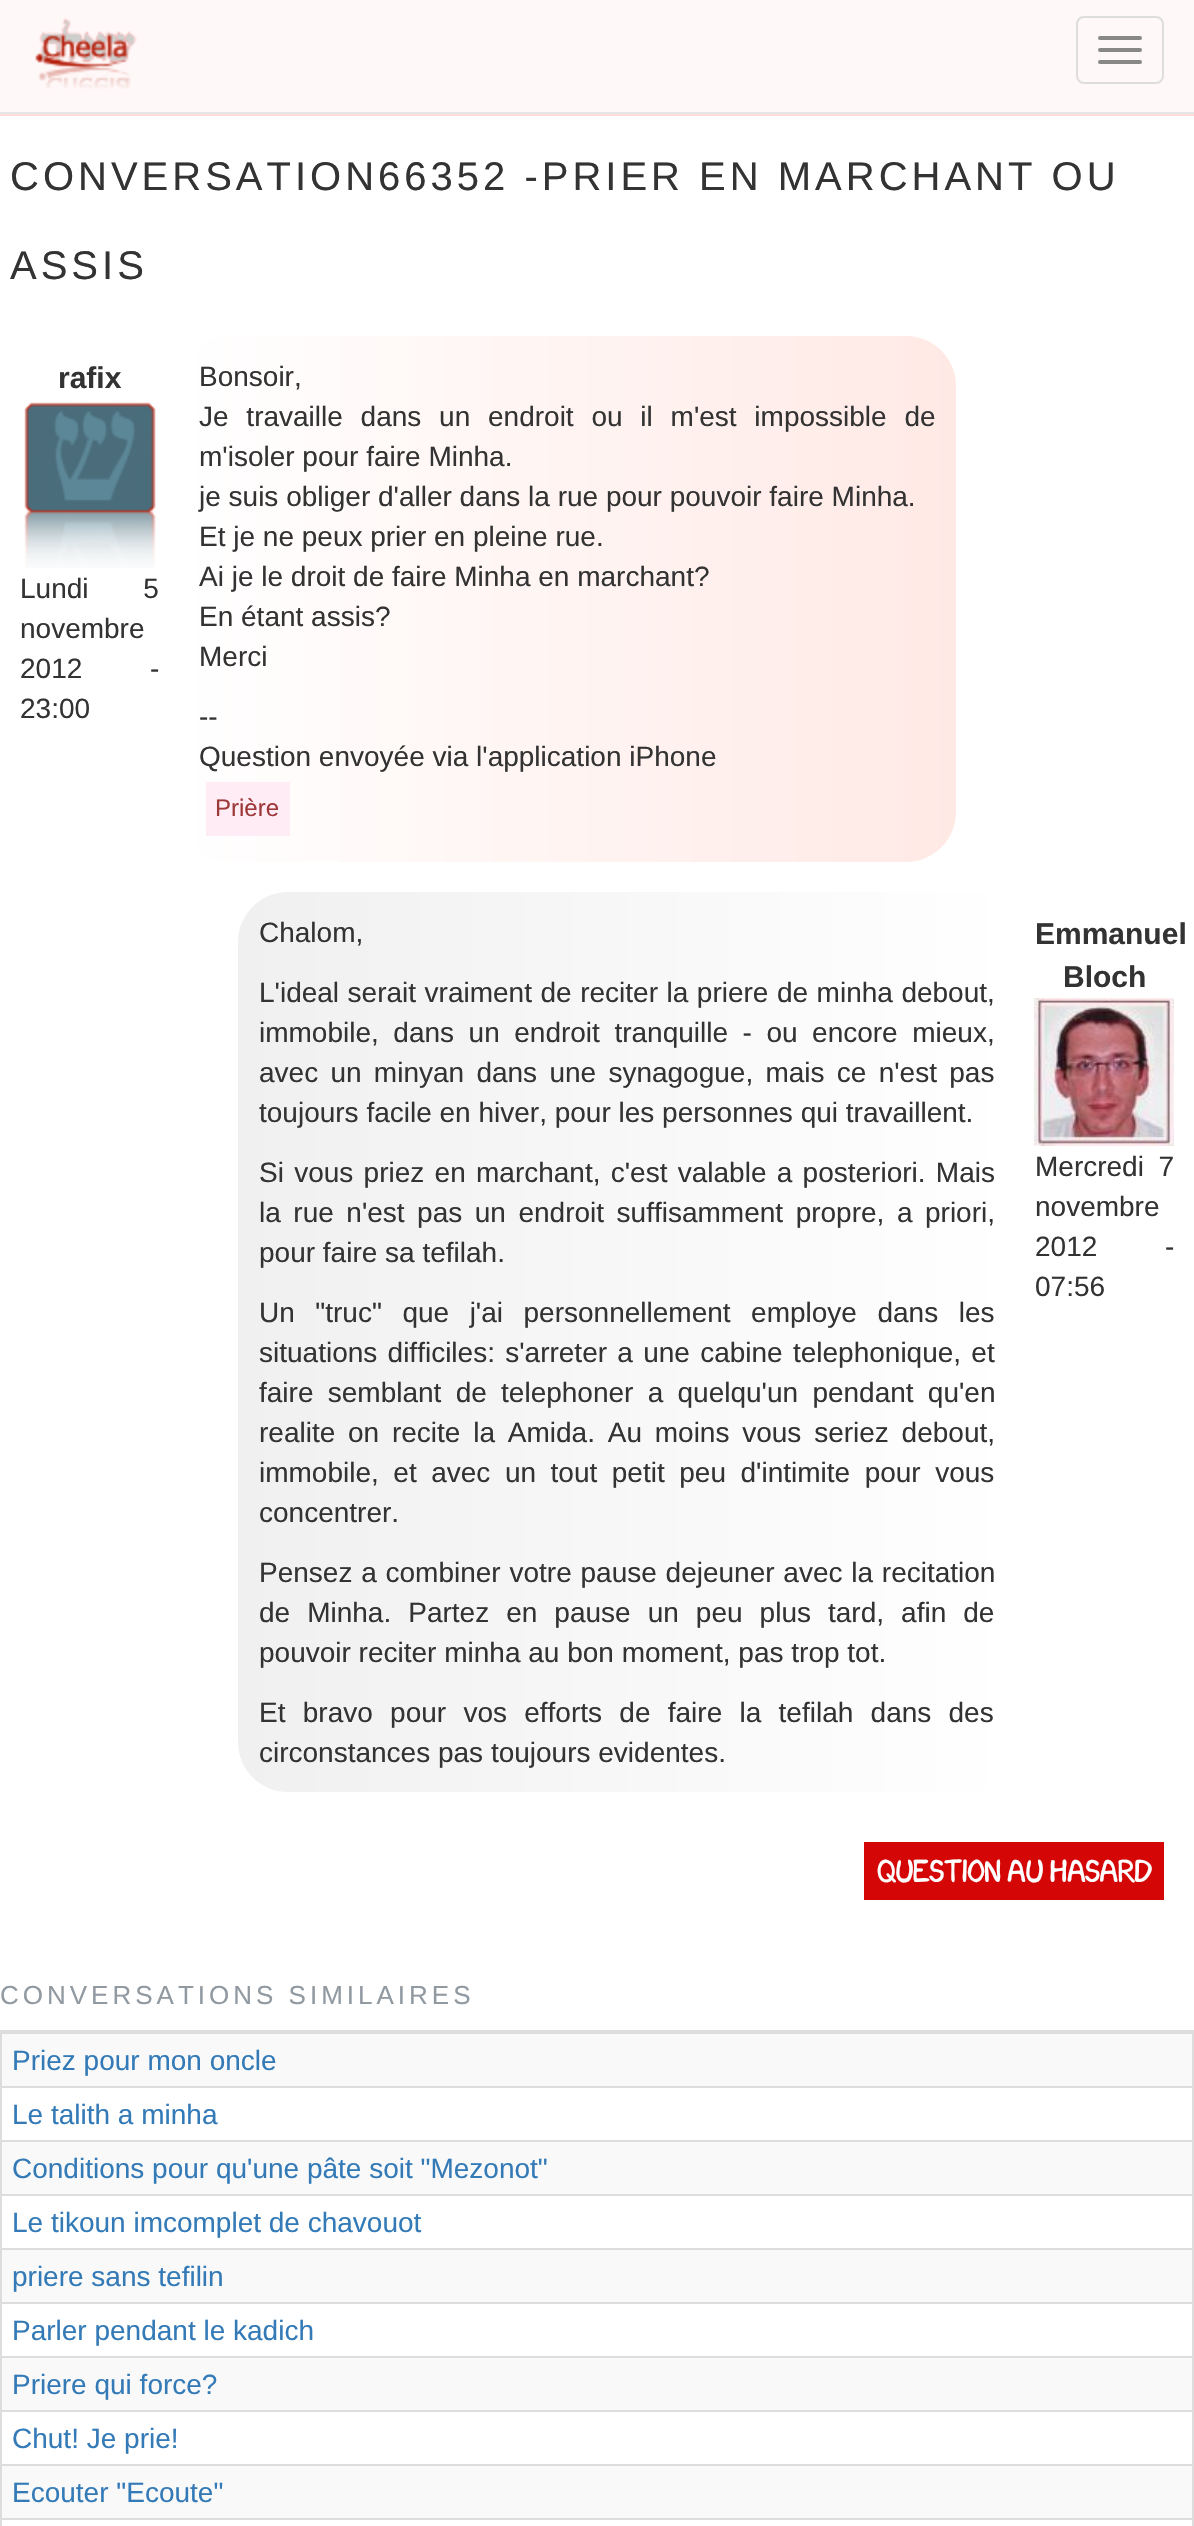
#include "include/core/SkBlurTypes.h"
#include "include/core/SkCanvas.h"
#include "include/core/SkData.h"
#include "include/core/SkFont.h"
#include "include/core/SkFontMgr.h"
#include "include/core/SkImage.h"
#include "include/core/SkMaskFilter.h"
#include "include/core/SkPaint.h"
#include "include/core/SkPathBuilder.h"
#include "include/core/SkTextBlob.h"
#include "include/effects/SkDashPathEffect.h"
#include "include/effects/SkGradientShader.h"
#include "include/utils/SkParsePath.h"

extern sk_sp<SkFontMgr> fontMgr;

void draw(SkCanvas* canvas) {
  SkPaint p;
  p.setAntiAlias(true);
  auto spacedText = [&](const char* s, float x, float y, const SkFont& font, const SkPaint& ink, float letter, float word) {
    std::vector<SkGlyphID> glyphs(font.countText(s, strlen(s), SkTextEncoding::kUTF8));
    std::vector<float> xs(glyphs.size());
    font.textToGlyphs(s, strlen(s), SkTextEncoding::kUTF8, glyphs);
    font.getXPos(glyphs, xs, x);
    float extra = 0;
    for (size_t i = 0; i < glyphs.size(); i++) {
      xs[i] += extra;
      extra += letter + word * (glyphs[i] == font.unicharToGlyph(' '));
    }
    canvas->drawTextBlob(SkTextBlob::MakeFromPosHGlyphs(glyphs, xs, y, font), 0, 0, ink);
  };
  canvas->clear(SK_ColorWHITE);
  p.setColor(SkColorSetRGB(255, 219, 219));
  canvas->drawRect(SkRect::MakeLTRB(0, 114, 1194, 116), p);
  p.setColor(SkColorSetRGB(255, 248, 248));
  canvas->drawRect(SkRect::MakeLTRB(0, 0, 1194, 112), p);
  p.setColor(SkColorSetRGB(231, 231, 231));
  canvas->drawRect(SkRect::MakeLTRB(0, 112, 1194, 114), p);
  canvas->drawImageRect(SkImages::DeferredFromEncodedData(SkData::MakeFromFileName("images/1.png")), SkRect::MakeLTRB(35, 17, 137, 89), SkSamplingOptions());
  p.setStyle(SkPaint::kStroke_Style);
  p.setStrokeWidth(2);
  p.setColor(SkColorSetRGB(221, 221, 221));
  canvas->drawRoundRect(SkRect::MakeLTRB(1077, 17, 1163, 83), 7, 7, p);
  p.setStyle(SkPaint::kFill_Style);
  p.setColor(SkColorSetRGB(136, 136, 136));
  canvas->drawRoundRect(SkRect::MakeLTRB(1098, 36, 1142, 40), 2, 2, p);
  canvas->drawRoundRect(SkRect::MakeLTRB(1098, 48, 1142, 52), 2, 2, p);
  canvas->drawRoundRect(SkRect::MakeLTRB(1098, 60, 1142, 64), 2, 2, p);
  canvas->drawImageRect(SkImages::DeferredFromEncodedData(SkData::MakeFromFileName("images/2.png")), SkRect::MakeLTRB(24, 402, 156, 568), SkSamplingOptions());
  {
    const SkColor colors[] = {SK_ColorWHITE, SkColorSetRGB(255, 233, 229)};
    const float stops[] = {0, 1};
    const SkPoint ends[] = {{180, 599}, {956, 599}};
    p.setShader(SkGradientShader::MakeLinear(ends, colors, stops, 2, SkTileMode::kClamp));
    p.setAlpha(255);
  }
  canvas->drawRoundRect(SkRect::MakeLTRB(180, 336, 956, 862), 50, 50, p);
  p.setShader(nullptr);
  p.setColor(SkColorSetRGB(255, 236, 244));
  canvas->drawRect(SkRect::MakeLTRB(206, 782, 290, 836), p);
  {
    const SkColor colors[] = {SK_ColorWHITE, SkColorSetRGB(240, 240, 240)};
    const float stops[] = {0, 1};
    const SkPoint ends[] = {{1014, 1342}, {238, 1342}};
    p.setShader(SkGradientShader::MakeLinear(ends, colors, stops, 2, SkTileMode::kClamp));
    p.setAlpha(255);
  }
  canvas->drawRoundRect(SkRect::MakeLTRB(238, 892, 1014, 1792), 50, 50, p);
  canvas->drawImageRect(SkImages::DeferredFromEncodedData(SkData::MakeFromFileName("images/3.png")), SkRect::MakeLTRB(1034, 998, 1174, 1146), SkSamplingOptions());
  p.setShader(nullptr);
  p.setColor(SkColorSetRGB(212, 6, 6));
  canvas->drawRect(SkRect::MakeLTRB(864, 1842, 1164, 1900), p);
  p.setStyle(SkPaint::kStroke_Style);
  p.setColor(SkColorSetRGB(221, 221, 221));
  canvas->drawRect(SkRect::MakeLTRB(1, 2031, 1193, 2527), p);
  p.setStyle(SkPaint::kFill_Style);
  p.setColor(SkColorSetRGB(249, 249, 249));
  canvas->drawRect(SkRect::MakeLTRB(2, 2034, 1192, 2086), p);
  p.setColor(SkColorSetRGB(221, 221, 221));
  canvas->drawRect(SkRect::MakeLTRB(2, 2032, 1192, 2034), p);
  canvas->drawRect(SkRect::MakeLTRB(2, 2086, 1192, 2088), p);
  p.setColor(SkColorSetRGB(249, 249, 249));
  canvas->drawRect(SkRect::MakeLTRB(2, 2142, 1192, 2194), p);
  p.setColor(SkColorSetRGB(221, 221, 221));
  canvas->drawRect(SkRect::MakeLTRB(2, 2140, 1192, 2142), p);
  canvas->drawRect(SkRect::MakeLTRB(2, 2194, 1192, 2196), p);
  p.setColor(SkColorSetRGB(249, 249, 249));
  canvas->drawRect(SkRect::MakeLTRB(2, 2250, 1192, 2302), p);
  p.setColor(SkColorSetRGB(221, 221, 221));
  canvas->drawRect(SkRect::MakeLTRB(2, 2248, 1192, 2250), p);
  canvas->drawRect(SkRect::MakeLTRB(2, 2302, 1192, 2304), p);
  p.setColor(SkColorSetRGB(249, 249, 249));
  canvas->drawRect(SkRect::MakeLTRB(2, 2358, 1192, 2410), p);
  p.setColor(SkColorSetRGB(221, 221, 221));
  canvas->drawRect(SkRect::MakeLTRB(2, 2356, 1192, 2358), p);
  canvas->drawRect(SkRect::MakeLTRB(2, 2410, 1192, 2412), p);
  p.setColor(SkColorSetRGB(249, 249, 249));
  canvas->drawRect(SkRect::MakeLTRB(2, 2466, 1192, 2518), p);
  p.setColor(SkColorSetRGB(221, 221, 221));
  canvas->drawRect(SkRect::MakeLTRB(2, 2464, 1192, 2466), p);
  canvas->drawRect(SkRect::MakeLTRB(2, 2518, 1192, 2520), p);
  SkFont font1(fontMgr->matchFamilyStyle("Liberation Sans", SkFontStyle::Normal()), 40);
  font1.setSubpixel(true);
  p.setColor(SkColorSetRGB(51, 51, 51));
  spacedText("CONVERSATION66352 -PRIER EN MARCHANT OU", 10, 190, font1, p, 4, 0);
  spacedText("ASSIS", 10, 279, font1, p, 4, 0);
  SkFont font2(fontMgr->matchFamilyStyle("Liberation Sans", SkFontStyle::Bold()), 30);
  font2.setSubpixel(true);
  canvas->drawString("rafix", 58, 388, font2, p);
  SkFont font3(fontMgr->matchFamilyStyle("Liberation Sans", SkFontStyle::Normal()), 28);
  font3.setSubpixel(true);
  spacedText("Lundi 5", 20, 598, font3, p, 0, 47);
  canvas->drawString("novembre", 20, 638, font3, p);
  spacedText("2012 -", 20, 678, font3, p, 0, 60);
  canvas->drawString("23:00", 20, 718, font3, p);
  canvas->drawString("Bonsoir,", 199, 386, font3, p);
  spacedText("Je travaille dans un endroit ou il m'est impossible de", 199, 426, font3, p, 0, 10);
  canvas->drawString("m'isoler pour faire Minha.", 199, 466, font3, p);
  canvas->drawString("je suis obliger d'aller dans la rue pour pouvoir faire Minha.", 199, 506, font3, p);
  canvas->drawString("Et je ne peux prier en pleine rue.", 199, 546, font3, p);
  canvas->drawString("Ai je le droit de faire Minha en marchant?", 199, 586, font3, p);
  canvas->drawString("En étant assis?", 199, 626, font3, p);
  canvas->drawString("Merci", 199, 666, font3, p);
  canvas->drawString("--", 199, 726, font3, p);
  canvas->drawString("Question envoyée via l'application iPhone", 199, 766, font3, p);
  SkFont font4(fontMgr->matchFamilyStyle("Liberation Sans", SkFontStyle::Normal()), 24);
  font4.setSubpixel(true);
  p.setColor(SkColorSetRGB(157, 57, 57));
  canvas->drawString("Prière", 215, 816, font4, p);
  p.setColor(SkColorSetRGB(51, 51, 51));
  canvas->drawString("Chalom,", 259, 942, font3, p);
  spacedText("L'ideal serait vraiment de reciter la priere de minha debout,", 259, 1002, font3, p, 0, 0.75f);
  spacedText("immobile, dans un endroit tranquille - ou encore mieux,", 259, 1042, font3, p, 0, 6.75f);
  spacedText("avec un minyan dans une synagogue, mais ce n'est pas", 259, 1082, font3, p, 0, 4.5f);
  canvas->drawString("toujours facile en hiver, pour les personnes qui travaillent.", 259, 1122, font3, p);
  spacedText("Si vous priez en marchant, c'est valable a posteriori. Mais", 259, 1182, font3, p, 0, 2.5f);
  spacedText("la rue n'est pas un endroit suffisamment propre, a priori,", 259, 1222, font3, p, 0, 4.75f);
  canvas->drawString("pour faire sa tefilah.", 259, 1262, font3, p);
  spacedText("Un \"truc\" que j'ai personnellement employe dans les", 259, 1322, font3, p, 0, 12.75f);
  spacedText("situations difficiles: s'arreter a une cabine telephonique, et", 259, 1362, font3, p, 0, 2.5f);
  spacedText("faire semblant de telephoner a quelqu'un pendant qu'en", 259, 1402, font3, p, 0, 6.5f);
  spacedText("realite on recite la Amida. Au moins vous seriez debout,", 259, 1442, font3, p, 0, 5);
  spacedText("immobile, et avec un tout petit peu d'intimite pour vous", 259, 1482, font3, p, 0, 6.75f);
  canvas->drawString("concentrer.", 259, 1522, font3, p);
  spacedText("Pensez a combiner votre pause dejeuner avec la recitation", 259, 1582, font3, p, 0, 1);
  spacedText("de Minha. Partez en pause un peu plus tard, afin de", 259, 1622, font3, p, 0, 9.25f);
  canvas->drawString("pouvoir reciter minha au bon moment, pas trop tot.", 259, 1662, font3, p);
  spacedText("Et bravo pour vos efforts de faire la tefilah dans des", 259, 1722, font3, p, 0, 9.5f);
  canvas->drawString("circonstances pas toujours evidentes.", 259, 1762, font3, p);
  canvas->drawString("Emmanuel", 1035, 944, font2, p);
  canvas->drawString("Bloch", 1063, 987, font2, p);
  spacedText("Mercredi 7", 1035, 1176, font3, p, 0, 6.75f);
  canvas->drawString("novembre", 1035, 1216, font3, p);
  spacedText("2012 -", 1035, 1256, font3, p, 0, 60);
  canvas->drawString("07:56", 1035, 1296, font3, p);
  SkFont font5(fontMgr->matchFamilyStyle("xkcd", SkFontStyle::Normal()), 28);
  font5.setSubpixel(true);
  p.setColor(SK_ColorWHITE);
  canvas->drawString("Question au hasard", 877, 1882, font5, p);
  SkFont font6(fontMgr->matchFamilyStyle("Liberation Sans", SkFontStyle::Normal()), 26);
  font6.setSubpixel(true);
  p.setColor(SkColorSetRGB(145, 153, 161));
  spacedText("CONVERSATIONS SIMILAIRES", 0, 2004, font6, p, 4, 0);
  p.setColor(SkColorSetRGB(51, 122, 183));
  canvas->drawString("Priez pour mon oncle", 12, 2070, font3, p);
  canvas->drawString("Le talith a minha", 12, 2124, font3, p);
  canvas->drawString("Conditions pour qu'une pâte soit \"Mezonot\"", 12, 2178, font3, p);
  canvas->drawString("Le tikoun imcomplet de chavouot", 12, 2232, font3, p);
  canvas->drawString("priere sans tefilin", 12, 2286, font3, p);
  canvas->drawString("Parler pendant le kadich", 12, 2340, font3, p);
  canvas->drawString("Priere qui force?", 12, 2394, font3, p);
  canvas->drawString("Chut! Je prie!", 12, 2448, font3, p);
  canvas->drawString("Ecouter \"Ecoute\"", 12, 2502, font3, p);
}
